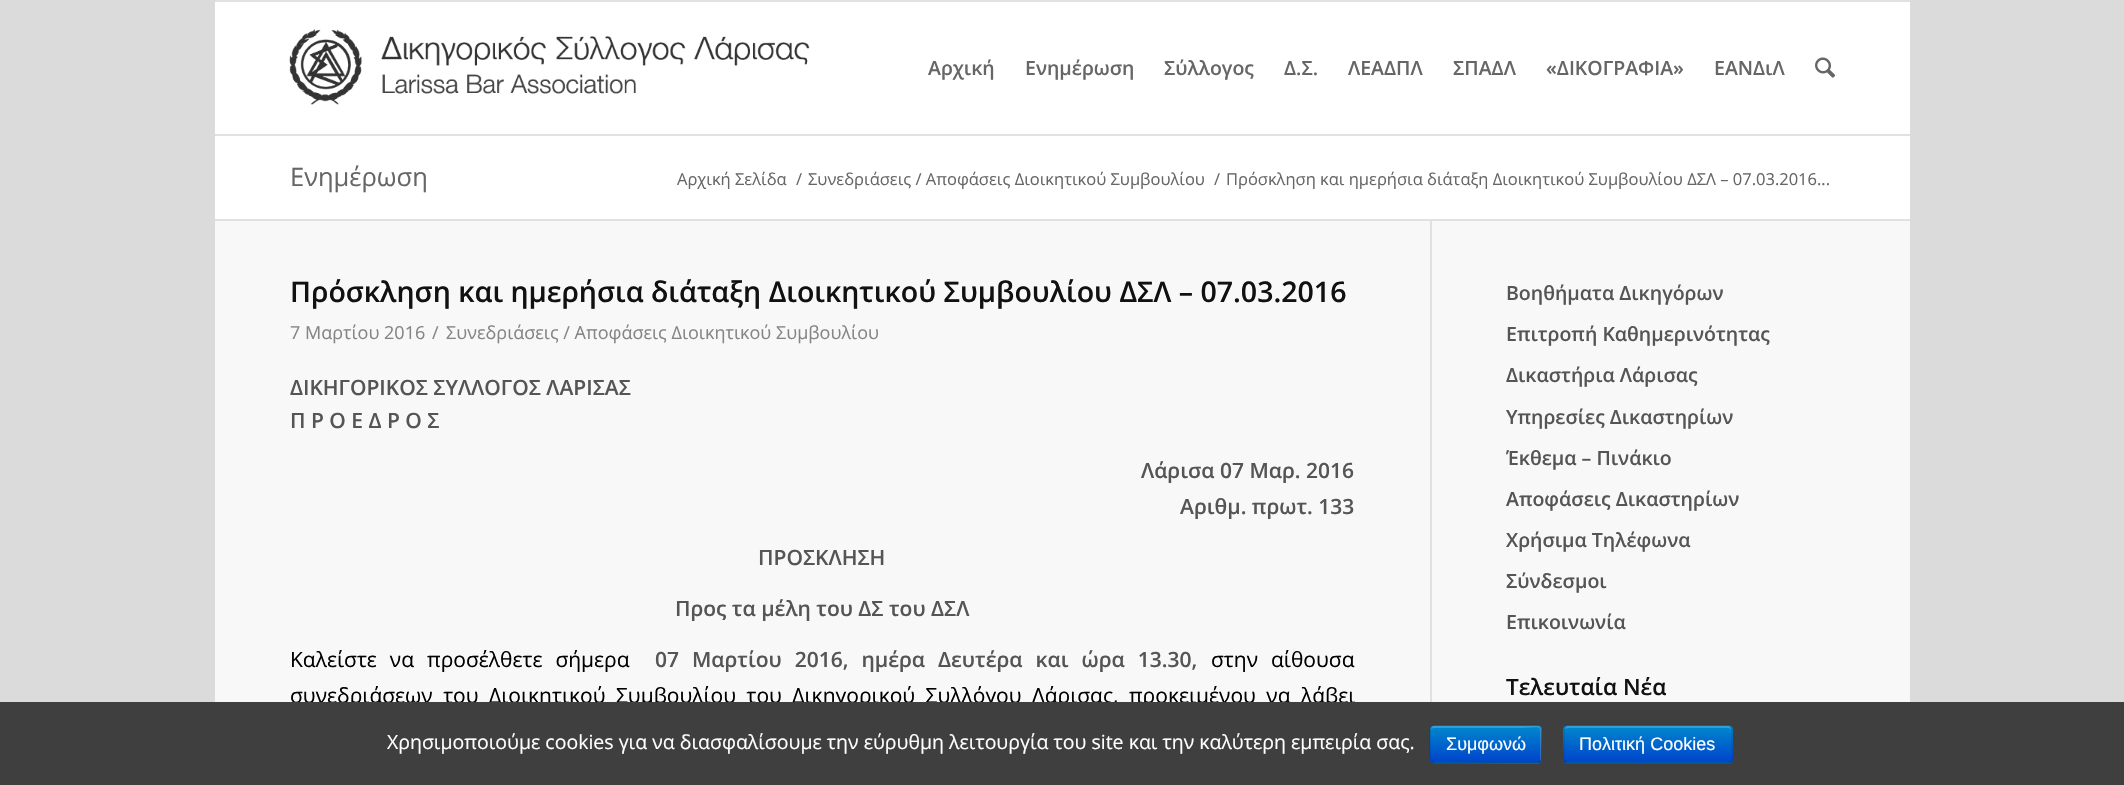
#include "include/core/SkBlurTypes.h"
#include "include/core/SkCanvas.h"
#include "include/core/SkData.h"
#include "include/core/SkFont.h"
#include "include/core/SkFontMgr.h"
#include "include/core/SkImage.h"
#include "include/core/SkMaskFilter.h"
#include "include/core/SkPaint.h"
#include "include/core/SkPathBuilder.h"
#include "include/core/SkTextBlob.h"
#include "include/effects/SkDashPathEffect.h"
#include "include/effects/SkGradientShader.h"
#include "include/utils/SkParsePath.h"

extern sk_sp<SkFontMgr> fontMgr;

void draw(SkCanvas* canvas) {
  SkPaint p;
  p.setAntiAlias(true);
  auto spacedText = [&](const char* s, float x, float y, const SkFont& font, const SkPaint& ink, float letter, float word) {
    std::vector<SkGlyphID> glyphs(font.countText(s, strlen(s), SkTextEncoding::kUTF8));
    std::vector<float> xs(glyphs.size());
    font.textToGlyphs(s, strlen(s), SkTextEncoding::kUTF8, glyphs);
    font.getXPos(glyphs, xs, x);
    float extra = 0;
    for (size_t i = 0; i < glyphs.size(); i++) {
      xs[i] += extra;
      extra += letter + word * (glyphs[i] == font.unicharToGlyph(' '));
    }
    canvas->drawTextBlob(SkTextBlob::MakeFromPosHGlyphs(glyphs, xs, y, font), 0, 0, ink);
  };
  canvas->clear(SkColorSetRGB(219, 219, 219));
  p.setColor(SK_ColorWHITE);
  canvas->drawRect(SkRect::MakeLTRB(215, 2, 1910, 134), p);
  p.setColor(SkColorSetRGB(225, 225, 225));
  canvas->drawRect(SkRect::MakeLTRB(215, 0, 1910, 2), p);
  canvas->drawRect(SkRect::MakeLTRB(215, 134, 1910, 136), p);
  canvas->drawImageRect(SkImages::DeferredFromEncodedData(SkData::MakeFromFileName("images/1.png")), SkRect::MakeLTRB(289, 29, 810, 105), SkSamplingOptions());
  canvas->drawImageRect(SkImages::DeferredFromEncodedData(SkData::MakeFromFileName("images/2.png")), SkRect::MakeLTRB(1815, 57, 1836, 78), SkSamplingOptions());
  p.setColor(SK_ColorWHITE);
  canvas->drawRect(SkRect::MakeLTRB(215, 136, 1910, 219), p);
  p.setColor(SkColorSetRGB(248, 248, 248));
  canvas->drawRect(SkRect::MakeLTRB(215, 221, 1910, 702), p);
  p.setColor(SkColorSetRGB(225, 225, 225));
  canvas->drawRect(SkRect::MakeLTRB(215, 219, 1910, 221), p);
  canvas->drawRect(SkRect::MakeLTRB(1430, 221, 1432, 702), p);
  SkFont font1(fontMgr->matchFamilyStyle("Open Sans", SkFontStyle(600, SkFontStyle::kNormal_Width, SkFontStyle::kUpright_Slant)), 19.5f);
  font1.setSubpixel(true);
  p.setColor(SkColorSetRGB(102, 102, 102));
  canvas->drawString("Αρχική", 928, 75, font1, p);
  canvas->drawString("Ενημέρωση", 1025, 75, font1, p);
  canvas->drawString("Σύλλογος", 1164, 75, font1, p);
  canvas->drawString("Δ.Σ.", 1284, 75, font1, p);
  canvas->drawString("ΛΕΑΔΠΛ", 1348, 75, font1, p);
  canvas->drawString("ΣΠΑΔΛ", 1453, 75, font1, p);
  canvas->drawString("«ΔΙΚΟΓΡΑΦΙΑ»", 1546, 75, font1, p);
  canvas->drawString("ΕΑΝΔιΛ", 1714, 75, font1, p);
  SkFont font2(fontMgr->matchFamilyStyle("Open Sans", SkFontStyle::Normal()), 25.5f);
  font2.setSubpixel(true);
  canvas->drawString("Ενημέρωση", 290, 186, font2, p);
  SkFont font3(fontMgr->matchFamilyStyle("Open Sans", SkFontStyle::Normal()), 16.5f);
  font3.setSubpixel(true);
  canvas->drawString("Αρχική Σελίδα", 677, 185, font3, p);
  canvas->drawString("/", 796, 185, font3, p);
  canvas->drawString("Συνεδριάσεις / Αποφάσεις Διοικητικού Συμβουλίου", 808, 185, font3, p);
  canvas->drawString("/", 1214, 185, font3, p);
  canvas->drawString("Πρόσκληση και ημερήσια διάταξη Διοικητικού Συμβουλίου ΔΣΛ – 07.03.2016...", 1226, 185, font3, p);
  SkFont font4(fontMgr->matchFamilyStyle("Open Sans", SkFontStyle(600, SkFontStyle::kNormal_Width, SkFontStyle::kUpright_Slant)), 28.5f);
  font4.setSubpixel(true);
  p.setColor(SkColorSetRGB(17, 17, 17));
  canvas->drawString("Πρόσκληση και ημερήσια διάταξη Διοικητικού Συμβουλίου ΔΣΛ – 07.03.2016", 290, 302, font4, p);
  SkFont font5(fontMgr->matchFamilyStyle("Open Sans", SkFontStyle::Normal()), 18);
  font5.setSubpixel(true);
  p.setColor(SkColorSetRGB(133, 133, 133));
  canvas->drawString("7 Μαρτίου 2016", 290, 339, font5, p);
  canvas->drawString("/", 432, 339, font5, p);
  canvas->drawString("Συνεδριάσεις / Αποφάσεις Διοικητικού Συμβουλίου", 446, 339, font5, p);
  SkFont font6(fontMgr->matchFamilyStyle("Open Sans", SkFontStyle(600, SkFontStyle::kNormal_Width, SkFontStyle::kUpright_Slant)), 21);
  font6.setSubpixel(true);
  p.setColor(SkColorSetRGB(85, 85, 85));
  canvas->drawString("ΔΙΚΗΓΟΡΙΚΟΣ ΣΥΛΛΟΓΟΣ ΛΑΡΙΣΑΣ", 290, 395, font6, p);
  canvas->drawString("Π Ρ Ο Ε Δ Ρ Ο Σ", 290, 428, font6, p);
  canvas->drawString("Λάρισα 07 Μαρ. 2016", 1141, 478, font6, p);
  canvas->drawString("Αριθμ. πρωτ. 133", 1180, 514, font6, p);
  canvas->drawString("ΠΡΟΣΚΛΗΣΗ", 758, 565, font6, p);
  canvas->drawString("Προς τα μέλη του ΔΣ του ΔΣΛ", 675, 616, font6, p);
  SkFont font7(fontMgr->matchFamilyStyle("Open Sans", SkFontStyle::Normal()), 21);
  font7.setSubpixel(true);
  p.setColor(SK_ColorBLACK);
  spacedText("Καλείστε να προσέλθετε σήμερα", 290, 667, font7, p, 0, 7.5f);
  p.setColor(SkColorSetRGB(85, 85, 85));
  spacedText("07 Μαρτίου 2016, ημέρα Δευτέρα και ώρα 13.30,", 655, 667, font6, p, 0, 7.5f);
  p.setColor(SK_ColorBLACK);
  spacedText("στην αίθουσα", 1211, 667, font7, p, 0, 7.5f);
  spacedText("συνεδριάσεων του Διοικητικού Συμβουλίου του Δικηγορικού Συλλόγου Λάρισας, προκειμένου να λάβει", 290, 703, font7, p, 0, 5);
  p.setColor(SkColorSetRGB(85, 85, 85));
  canvas->drawString("Βοηθήματα Δικηγόρων", 1506, 300, font1, p);
  canvas->drawString("Επιτροπή Καθημερινότητας", 1506, 341, font1, p);
  canvas->drawString("Δικαστήρια Λάρισας", 1506, 382, font1, p);
  canvas->drawString("Υπηρεσίες Δικαστηρίων", 1506, 424, font1, p);
  canvas->drawString("Έκθεμα – Πινάκιο", 1506, 465, font1, p);
  canvas->drawString("Αποφάσεις Δικαστηρίων", 1506, 506, font1, p);
  canvas->drawString("Χρήσιμα Τηλέφωνα", 1506, 547, font1, p);
  canvas->drawString("Σύνδεσμοι", 1506, 588, font1, p);
  canvas->drawString("Επικοινωνία", 1506, 629, font1, p);
  SkFont font8(fontMgr->matchFamilyStyle("Open Sans", SkFontStyle(600, SkFontStyle::kNormal_Width, SkFontStyle::kUpright_Slant)), 22.5f);
  font8.setSubpixel(true);
  p.setColor(SkColorSetRGB(17, 17, 17));
  canvas->drawString("Τελευταία Νέα", 1506, 695, font8, p);
  p.setColor(SkColorSetRGB(63, 63, 63));
  canvas->drawRect(SkRect::MakeLTRB(0, 702, 2124, 785), p);
  SkFont font9(fontMgr->matchFamilyStyle("Open Sans", SkFontStyle::Normal()), 19.5f);
  font9.setSubpixel(true);
  p.setColor(SK_ColorWHITE);
  canvas->drawString("Χρησιμοποιούμε cookies για να διασφαλίσουμε την εύρυθμη λειτουργία του site και την καλύτερη εμπειρία σας.", 387, 749, font9, p);
  p.setColor(SkColorSetRGB(0, 109, 204));
  canvas->drawRoundRect(SkRect::MakeLTRB(1430, 725, 1542, 764), 5, 5, p);
  canvas->save();
  canvas->clipPath(SkPathBuilder().moveTo(1435, 725).lineTo(1537, 725).cubicTo(1540, 725, 1542, 727, 1542, 730).lineTo(1542, 759).cubicTo(1542, 762, 1540, 764, 1537, 764).lineTo(1435, 764).cubicTo(1432, 764, 1430, 762, 1430, 759).lineTo(1430, 730).cubicTo(1430, 727, 1432, 725, 1435, 725).close().detach(), true);
  {
    const SkColor colors[] = {SkColorSetRGB(0, 136, 204), SkColorSetRGB(0, 68, 204)};
    const float stops[] = {0, 1};
    const SkPoint ends[] = {{1486, 726}, {1486, 762}};
    p.setShader(SkGradientShader::MakeLinear(ends, colors, stops, 2, SkTileMode::kClamp));
    p.setAlpha(255);
  }
  canvas->drawRect(SkRect::MakeLTRB(1430, 726, 1542, 762), p);
  canvas->restore();
  p.setShader(nullptr);
  p.setColor(SkColorSetARGB(51, 255, 255, 255));
  canvas->drawPath(SkPathBuilder().moveTo(1434, 728).lineTo(1521, 728).cubicTo(1542, 728, 1540, 723, 1540, 740).lineTo(1540, 761).cubicTo(1541, 761, 1541, 760, 1541, 759).lineTo(1541, 729).cubicTo(1541, 727, 1540, 726, 1538, 726).lineTo(1434, 726).cubicTo(1432, 726, 1431, 727, 1431, 729).lineTo(1431, 730).cubicTo(1431, 729, 1432, 728, 1434, 728).close().detach(), p);
  p.setStyle(SkPaint::kStroke_Style);
  p.setStrokeWidth(1.5f);
  p.setColor(SkColorSetARGB(64, 0, 0, 0));
  canvas->drawPath(SkPathBuilder().moveTo(1540, 761.5f).lineTo(1538, 762.5f).lineTo(1451, 763).lineTo(1434, 763).lineTo(1431.5f, 761.5f).detach(), p);
  p.setColor(SkColorSetARGB(26, 0, 0, 0));
  canvas->drawPath(SkPathBuilder().moveTo(1431.5f, 761.5f).cubicTo(1429, 759, 1430, 751.5f, 1430, 749).lineTo(1430, 734).cubicTo(1430, 731, 1429.5f, 725.5f, 1434, 725).lineTo(1520, 725).cubicTo(1544.5f, 725, 1541, 721, 1541, 744).lineTo(1541, 754).cubicTo(1541, 756, 1542, 760, 1540, 761.5f).detach(), p);
  SkFont font10(fontMgr->matchFamilyStyle("Liberation Sans", SkFontStyle::Normal()), 18);
  font10.setSubpixel(true);
  p.setStyle(SkPaint::kFill_Style);
  p.setColor(SK_ColorWHITE);
  canvas->drawString("Συμφωνώ", 1446, 750, font10, p);
  p.setColor(SkColorSetRGB(0, 109, 204));
  canvas->drawRoundRect(SkRect::MakeLTRB(1563, 725, 1733, 764), 5, 5, p);
  canvas->save();
  canvas->clipPath(SkPathBuilder().moveTo(1568, 725).lineTo(1728, 725).cubicTo(1731, 725, 1733, 727, 1733, 730).lineTo(1733, 759).cubicTo(1733, 762, 1731, 764, 1728, 764).lineTo(1568, 764).cubicTo(1565, 764, 1563, 762, 1563, 759).lineTo(1563, 730).cubicTo(1563, 727, 1565, 725, 1568, 725).close().detach(), true);
  {
    const SkColor colors[] = {SkColorSetRGB(0, 136, 204), SkColorSetRGB(0, 68, 204)};
    const float stops[] = {0, 1};
    const SkPoint ends[] = {{1648, 726}, {1648, 762}};
    p.setShader(SkGradientShader::MakeLinear(ends, colors, stops, 2, SkTileMode::kClamp));
    p.setAlpha(255);
  }
  canvas->drawRect(SkRect::MakeLTRB(1563, 726, 1733, 762), p);
  canvas->restore();
  p.setShader(nullptr);
  p.setColor(SkColorSetARGB(51, 255, 255, 255));
  canvas->drawPath(SkPathBuilder().moveTo(1568, 728).lineTo(1728, 728).cubicTo(1730, 728, 1731, 729, 1731, 730).lineTo(1731, 729).cubicTo(1731, 727, 1730, 726, 1728, 726).lineTo(1568, 726).cubicTo(1566, 726, 1565, 727, 1565, 729).close().detach(), p);
  p.setStyle(SkPaint::kStroke_Style);
  p.setColor(SkColorSetARGB(64, 0, 0, 0));
  canvas->drawPath(SkPathBuilder().moveTo(1730.5f, 761.5f).cubicTo(1730, 762.5f, 1729, 763, 1728, 763).lineTo(1567.5f, 763).cubicTo(1566.5f, 763, 1565.5f, 762.5f, 1565, 761.5f).detach(), p);
  p.setColor(SkColorSetARGB(26, 0, 0, 0));
  canvas->drawPath(SkPathBuilder().moveTo(1565, 761.5f).cubicTo(1564, 761, 1564, 760, 1564, 759).lineTo(1564, 729).cubicTo(1564, 728, 1564, 727, 1565, 726.5f).cubicTo(1565.5f, 725.5f, 1566.5f, 725, 1567.5f, 725).lineTo(1728, 725).cubicTo(1729, 725, 1730, 725.5f, 1730.5f, 726.5f).cubicTo(1731.5f, 727, 1732, 728, 1732, 729).lineTo(1732, 759).cubicTo(1732, 760, 1731.5f, 761, 1730.5f, 761.5f).detach(), p);
  p.setStyle(SkPaint::kFill_Style);
  p.setColor(SK_ColorWHITE);
  canvas->drawString("Πολιτική Cookies", 1579, 750, font10, p);
}
